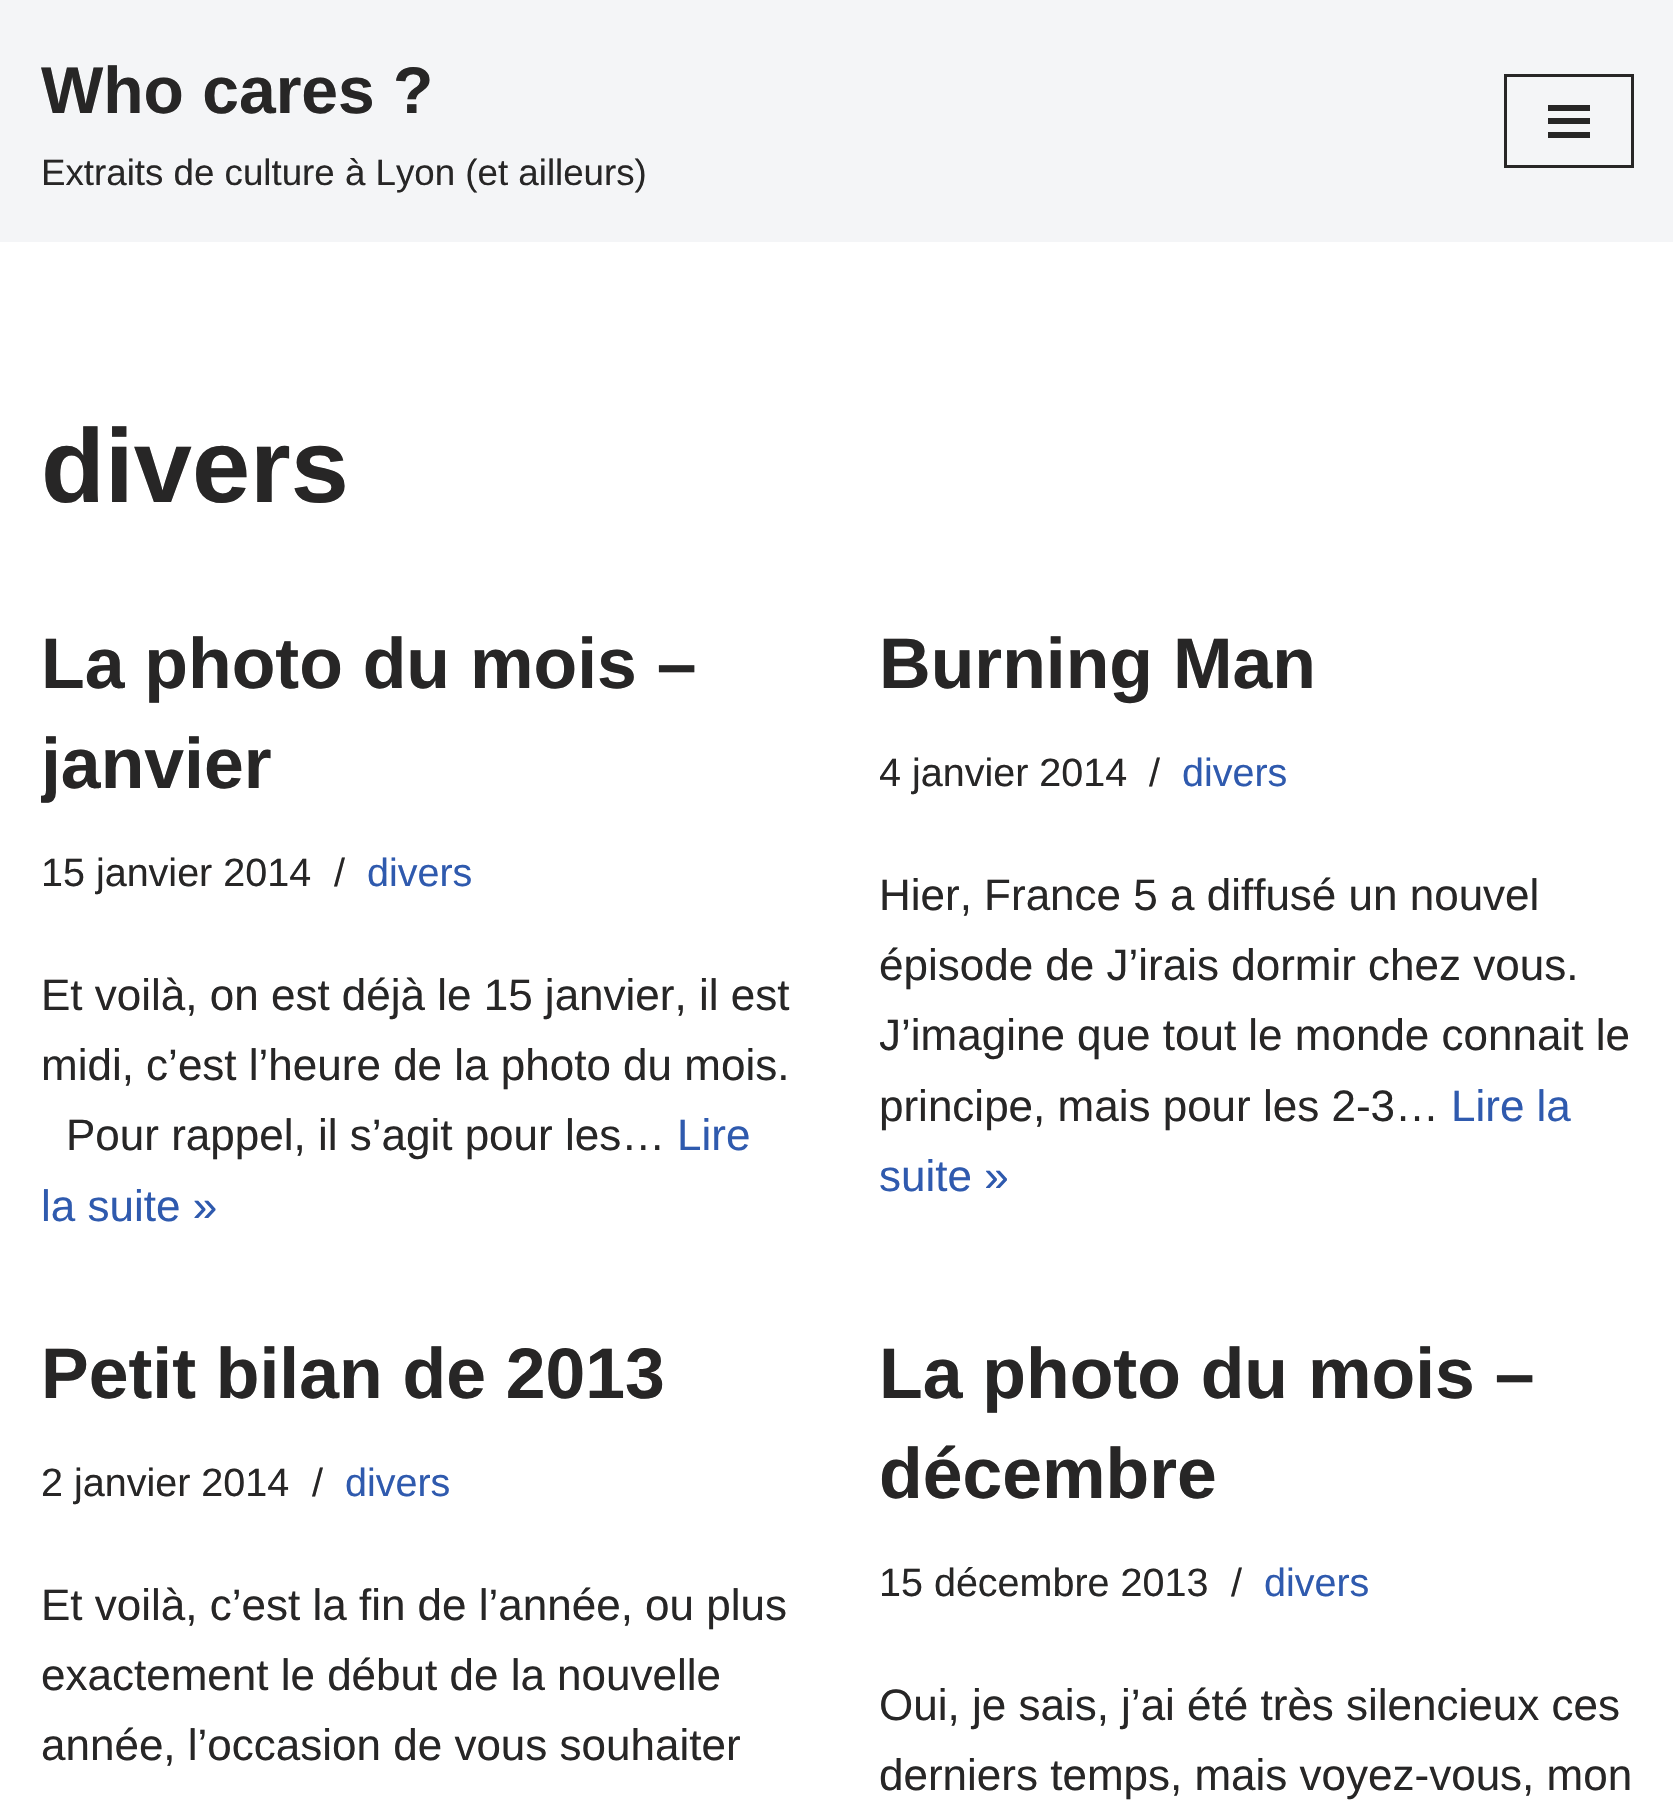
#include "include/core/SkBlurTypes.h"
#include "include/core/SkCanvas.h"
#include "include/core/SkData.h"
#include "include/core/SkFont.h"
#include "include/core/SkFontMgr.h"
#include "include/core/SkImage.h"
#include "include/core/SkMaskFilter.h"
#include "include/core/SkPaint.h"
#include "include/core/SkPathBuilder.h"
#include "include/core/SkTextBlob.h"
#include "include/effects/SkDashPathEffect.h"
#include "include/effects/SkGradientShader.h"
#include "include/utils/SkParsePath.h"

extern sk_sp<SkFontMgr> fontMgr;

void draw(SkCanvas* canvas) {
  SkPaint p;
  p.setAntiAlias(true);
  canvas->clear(SK_ColorWHITE);
  p.setColor(SkColorSetRGB(244, 245, 247));
  canvas->drawRect(SkRect::MakeLTRB(0, 0, 1673, 242), p);
  p.setStyle(SkPaint::kStroke_Style);
  p.setStrokeWidth(3);
  p.setColor(SkColorSetRGB(39, 38, 38));
  canvas->drawRect(SkRect::MakeLTRB(1505.5f, 75.5f, 1632.5f, 166.5f), p);
  p.setStyle(SkPaint::kFill_Style);
  canvas->drawRect(SkRect::MakeLTRB(1548, 105, 1590, 111), p);
  canvas->drawRect(SkRect::MakeLTRB(1548, 118, 1590, 124), p);
  canvas->drawRect(SkRect::MakeLTRB(1548, 132, 1590, 138), p);
  SkFont font1(fontMgr->matchFamilyStyle("Liberation Sans", SkFontStyle::Bold()), 66);
  font1.setSubpixel(true);
  canvas->drawString("Who cares ?", 41, 113, font1, p);
  SkFont font2(fontMgr->matchFamilyStyle("Liberation Sans", SkFontStyle::Normal()), 36.7f);
  font2.setSubpixel(true);
  canvas->drawString("Extraits de culture à Lyon (et ailleurs)", 41, 185, font2, p);
  SkFont font3(fontMgr->matchFamilyStyle("Liberation Sans", SkFontStyle::Bold()), 104.5f);
  font3.setSubpixel(true);
  canvas->drawString("divers", 41, 502, font3, p);
  SkFont font4(fontMgr->matchFamilyStyle("Liberation Sans", SkFontStyle::Bold()), 71.5f);
  font4.setSubpixel(true);
  canvas->drawString("La photo du mois –", 41, 688, font4, p);
  canvas->save();
  canvas->clipRect(SkRect::MakeLTRB(41, 613, 798, 1243));
  canvas->drawString("janvier", 41, 788, font4, p);
  canvas->restore();
  SkFont font5(fontMgr->matchFamilyStyle("Liberation Sans", SkFontStyle::Normal()), 39.5f);
  font5.setSubpixel(true);
  canvas->drawString("15 janvier 2014", 41, 886, font5, p);
  canvas->drawString("/", 334, 886, font5, p);
  p.setColor(SkColorSetRGB(47, 90, 174));
  canvas->drawString("divers", 367, 886, font5, p);
  SkFont font6(fontMgr->matchFamilyStyle("Liberation Sans", SkFontStyle::Normal()), 44);
  font6.setSubpixel(true);
  p.setColor(SkColorSetRGB(39, 38, 38));
  canvas->drawString("Et voilà, on est déjà le 15 janvier, il est", 41, 1010, font6, p);
  canvas->drawString("midi, c’est l’heure de la photo du mois.", 41, 1080, font6, p);
  canvas->drawString("Pour rappel, il s’agit pour les…", 66, 1150, font6, p);
  p.setColor(SkColorSetRGB(47, 90, 174));
  canvas->drawString("Lire", 677, 1150, font6, p);
  canvas->drawString("la suite »", 41, 1221, font6, p);
  p.setColor(SkColorSetRGB(39, 38, 38));
  canvas->drawString("Burning Man", 879, 688, font4, p);
  canvas->save();
  canvas->clipRect(SkRect::MakeLTRB(880, 613, 1634, 1243));
  canvas->drawString("4 janvier 2014", 879, 786, font5, p);
  canvas->restore();
  canvas->drawString("/", 1149, 786, font5, p);
  p.setColor(SkColorSetRGB(47, 90, 174));
  canvas->drawString("divers", 1182, 786, font5, p);
  p.setColor(SkColorSetRGB(39, 38, 38));
  canvas->drawString("Hier, France 5 a diffusé un nouvel", 879, 910, font6, p);
  canvas->drawString("épisode de J’irais dormir chez vous.", 879, 980, font6, p);
  canvas->save();
  canvas->clipRect(SkRect::MakeLTRB(880, 613, 1634, 1243));
  canvas->drawString("J’imagine que tout le monde connait le", 879, 1050, font6, p);
  canvas->restore();
  canvas->drawString("principe, mais pour les 2-3…", 879, 1121, font6, p);
  p.setColor(SkColorSetRGB(47, 90, 174));
  canvas->drawString("Lire la", 1451, 1121, font6, p);
  canvas->drawString("suite »", 879, 1191, font6, p);
  p.setColor(SkColorSetRGB(39, 38, 38));
  canvas->drawString("Petit bilan de 2013", 41, 1398, font4, p);
  canvas->drawString("2 janvier 2014", 41, 1496, font5, p);
  canvas->drawString("/", 312, 1496, font5, p);
  p.setColor(SkColorSetRGB(47, 90, 174));
  canvas->drawString("divers", 345, 1496, font5, p);
  p.setColor(SkColorSetRGB(39, 38, 38));
  canvas->drawString("Et voilà, c’est la fin de l’année, ou plus", 41, 1620, font6, p);
  canvas->drawString("exactement le début de la nouvelle", 41, 1690, font6, p);
  canvas->drawString("année, l’occasion de vous souhaiter", 41, 1760, font6, p);
  canvas->drawString("La photo du mois –", 879, 1398, font4, p);
  canvas->drawString("décembre", 879, 1498, font4, p);
  canvas->drawString("15 décembre 2013", 879, 1596, font5, p);
  canvas->drawString("/", 1231, 1596, font5, p);
  p.setColor(SkColorSetRGB(47, 90, 174));
  canvas->drawString("divers", 1264, 1596, font5, p);
  p.setColor(SkColorSetRGB(39, 38, 38));
  canvas->drawString("Oui, je sais, j’ai été très silencieux ces", 879, 1720, font6, p);
  canvas->drawString("derniers temps, mais voyez-vous, mon", 879, 1790, font6, p);
}
